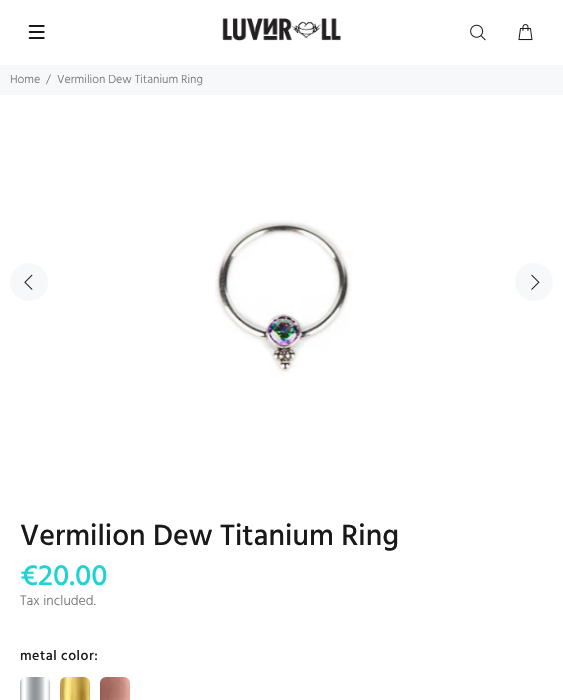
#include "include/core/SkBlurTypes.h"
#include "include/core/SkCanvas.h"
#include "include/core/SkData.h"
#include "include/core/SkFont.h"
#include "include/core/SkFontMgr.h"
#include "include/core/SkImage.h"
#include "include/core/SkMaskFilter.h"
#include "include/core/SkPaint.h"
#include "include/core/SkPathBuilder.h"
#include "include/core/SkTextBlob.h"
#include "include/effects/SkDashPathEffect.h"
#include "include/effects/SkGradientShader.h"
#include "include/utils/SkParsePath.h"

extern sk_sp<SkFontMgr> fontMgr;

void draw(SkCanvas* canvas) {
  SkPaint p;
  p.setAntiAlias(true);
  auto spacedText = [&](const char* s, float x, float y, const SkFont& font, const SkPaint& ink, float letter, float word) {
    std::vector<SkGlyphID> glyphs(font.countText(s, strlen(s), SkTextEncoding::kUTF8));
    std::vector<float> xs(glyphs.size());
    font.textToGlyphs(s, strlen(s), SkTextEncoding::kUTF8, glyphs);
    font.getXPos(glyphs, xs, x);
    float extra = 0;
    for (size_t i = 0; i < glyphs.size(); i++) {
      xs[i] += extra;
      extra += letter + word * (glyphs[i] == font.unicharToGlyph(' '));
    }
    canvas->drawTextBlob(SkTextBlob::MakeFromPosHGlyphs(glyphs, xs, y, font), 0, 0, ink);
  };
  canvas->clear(SK_ColorWHITE);
  canvas->drawImageRect(SkImages::DeferredFromEncodedData(SkData::MakeFromFileName("images/1.png")), SkRect::MakeLTRB(28, 25, 45, 39), SkSamplingOptions());
  canvas->drawImageRect(SkImages::DeferredFromEncodedData(SkData::MakeFromFileName("images/2.png")), SkRect::MakeLTRB(222, 18, 341, 41), SkSamplingOptions());
  canvas->drawImageRect(SkImages::DeferredFromEncodedData(SkData::MakeFromFileName("images/3.png")), SkRect::MakeLTRB(470, 24, 486, 41), SkSamplingOptions());
  canvas->drawImageRect(SkImages::DeferredFromEncodedData(SkData::MakeFromFileName("images/4.png")), SkRect::MakeLTRB(518, 24, 533, 41), SkSamplingOptions());
  p.setColor(SkColorSetRGB(247, 248, 250));
  canvas->drawRect(SkRect::MakeLTRB(0, 65, 563, 95), p);
  canvas->drawCircle(29, 282, 19, p);
  canvas->drawImageRect(SkImages::DeferredFromEncodedData(SkData::MakeFromFileName("images/5.png")), SkRect::MakeLTRB(24, 274, 33, 290), SkSamplingOptions());
  canvas->drawImageRect(SkImages::DeferredFromEncodedData(SkData::MakeFromFileName("images/6.png")), SkRect::MakeLTRB(215, 220, 352, 373), SkSamplingOptions());
  canvas->drawCircle(534, 282, 19, p);
  canvas->drawImageRect(SkImages::DeferredFromEncodedData(SkData::MakeFromFileName("images/7.png")), SkRect::MakeLTRB(531, 274, 540, 290), SkSamplingOptions());
  canvas->drawImageRect(SkImages::DeferredFromEncodedData(SkData::MakeFromFileName("images/8.png")), SkRect::MakeLTRB(20, 677, 50, 700), SkSamplingOptions());
  canvas->drawImageRect(SkImages::DeferredFromEncodedData(SkData::MakeFromFileName("images/9.png")), SkRect::MakeLTRB(60, 677, 90, 700), SkSamplingOptions());
  canvas->drawImageRect(SkImages::DeferredFromEncodedData(SkData::MakeFromFileName("images/10.png")), SkRect::MakeLTRB(100, 677, 130, 700), SkSamplingOptions());
  SkFont font1(fontMgr->matchFamilyStyle("Hind", SkFontStyle(300, SkFontStyle::kNormal_Width, SkFontStyle::kUpright_Slant)), 12);
  font1.setSubpixel(true);
  p.setColor(SkColorSetRGB(119, 119, 119));
  canvas->drawString("Home", 10, 83, font1, p);
  canvas->drawString("/", 46, 83, font1, p);
  canvas->drawString("Vermilion Dew Titanium Ring", 57, 83, font1, p);
  SkFont font2(fontMgr->matchFamilyStyle("Hind", SkFontStyle(500, SkFontStyle::kNormal_Width, SkFontStyle::kUpright_Slant)), 30);
  font2.setSubpixel(true);
  p.setColor(SkColorSetRGB(25, 25, 25));
  canvas->drawString("Vermilion Dew Titanium Ring", 20, 545, font2, p);
  p.setColor(SkColorSetRGB(29, 212, 212));
  canvas->drawString("€20.00", 20, 585, font2, p);
  SkFont font3(fontMgr->matchFamilyStyle("Hind", SkFontStyle(300, SkFontStyle::kNormal_Width, SkFontStyle::kUpright_Slant)), 14);
  font3.setSubpixel(true);
  p.setColor(SkColorSetRGB(119, 119, 119));
  canvas->drawString("Tax included.", 20, 605, font3, p);
  SkFont font4(fontMgr->matchFamilyStyle("Hind", SkFontStyle(500, SkFontStyle::kNormal_Width, SkFontStyle::kUpright_Slant)), 14);
  font4.setSubpixel(true);
  p.setColor(SkColorSetRGB(25, 25, 25));
  spacedText("metal color:", 20, 660, font4, p, 0.5f, 0);
}
